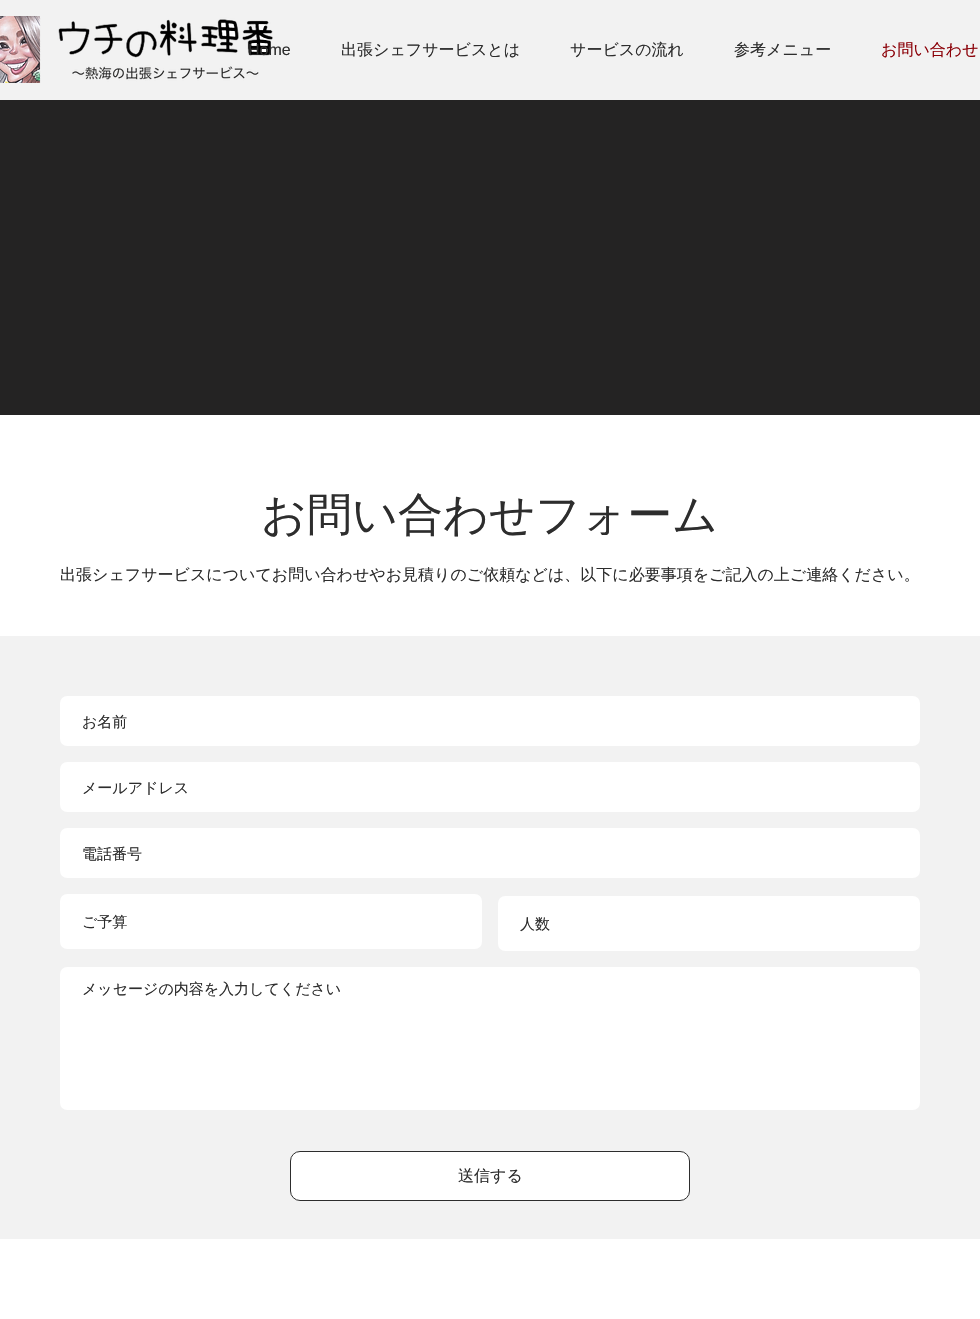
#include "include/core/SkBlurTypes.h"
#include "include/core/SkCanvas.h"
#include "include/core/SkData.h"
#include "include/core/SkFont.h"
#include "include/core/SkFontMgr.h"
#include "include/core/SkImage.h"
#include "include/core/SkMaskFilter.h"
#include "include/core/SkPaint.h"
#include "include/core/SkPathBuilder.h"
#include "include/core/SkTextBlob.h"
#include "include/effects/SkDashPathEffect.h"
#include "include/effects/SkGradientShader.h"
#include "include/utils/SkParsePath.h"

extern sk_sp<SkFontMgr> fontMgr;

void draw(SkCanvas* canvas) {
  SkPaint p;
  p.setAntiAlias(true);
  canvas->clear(SK_ColorWHITE);
  p.setColor(SkColorSetRGB(242, 242, 242));
  canvas->drawRect(SkRect::MakeLTRB(0, 0, 980, 100), p);
  canvas->drawImageRect(SkImages::DeferredFromEncodedData(SkData::MakeFromFileName("images/1.png")), SkRect::MakeLTRB(0, 16, 273, 83), SkSamplingOptions());
  p.setColor(SkColorSetRGB(36, 35, 35));
  canvas->drawRect(SkRect::MakeLTRB(0, 100, 980, 415), p);
  p.setColor(SkColorSetRGB(242, 242, 242));
  canvas->drawRect(SkRect::MakeLTRB(0, 636, 980, 1239), p);
  p.setColor(SK_ColorWHITE);
  canvas->drawRoundRect(SkRect::MakeLTRB(60, 696, 920, 746), 7, 7, p);
  canvas->drawRoundRect(SkRect::MakeLTRB(60, 762, 920, 812), 7, 7, p);
  canvas->drawRoundRect(SkRect::MakeLTRB(60, 828, 920, 878), 7, 7, p);
  canvas->drawRoundRect(SkRect::MakeLTRB(60, 894, 482, 949), 7, 7, p);
  canvas->drawRoundRect(SkRect::MakeLTRB(498, 896, 920, 951), 7, 7, p);
  canvas->drawRoundRect(SkRect::MakeLTRB(60, 967, 920, 1110), 7, 7, p);
  canvas->drawRoundRect(SkRect::MakeLTRB(290.5f, 1151.5f, 689.5f, 1200.5f), 9.5f, 9.5f, p);
  p.setStyle(SkPaint::kStroke_Style);
  p.setStrokeWidth(1);
  p.setColor(SkColorSetRGB(45, 45, 45));
  canvas->drawRoundRect(SkRect::MakeLTRB(290.5f, 1151.5f, 689.5f, 1200.5f), 9.5f, 9.5f, p);
  SkFont font1(fontMgr->matchFamilyStyle("Liberation Sans", SkFontStyle::Normal()), 16);
  font1.setSubpixel(true);
  p.setStyle(SkPaint::kFill_Style);
  canvas->drawString("Home", 248, 55, font1, p);
  SkFont font2(fontMgr->matchFamilyStyle("WenQuanYi Zen Hei", SkFontStyle(500, SkFontStyle::kNormal_Width, SkFontStyle::kUpright_Slant)), 16);
  font2.setSubpixel(true);
  canvas->drawString("出張シェフサービスとは", 341, 55, font2, p);
  canvas->drawString("サービスの流れ", 570, 55, font2, p);
  canvas->drawString("参考メニュー", 734, 55, font2, p);
  p.setColor(SkColorSetRGB(139, 0, 7));
  canvas->drawString("お問い合わせ", 881, 55, font2, p);
  SkFont font3(fontMgr->matchFamilyStyle("WenQuanYi Zen Hei", SkFontStyle(500, SkFontStyle::kNormal_Width, SkFontStyle::kUpright_Slant)), 45);
  font3.setSubpixel(true);
  p.setColor(SkColorSetRGB(45, 45, 45));
  canvas->drawString("お問い合わせフォーム", 261, 530, font3, p);
  canvas->drawString("出張シェフサービスについてお問い合わせやお見積りのご依頼などは、以下に必要事項をご記入の上ご連絡ください。", 60, 580, font2, p);
  SkFont font4(fontMgr->matchFamilyStyle("WenQuanYi Zen Hei", SkFontStyle(500, SkFontStyle::kNormal_Width, SkFontStyle::kUpright_Slant)), 15);
  font4.setSubpixel(true);
  canvas->drawString("お名前", 82, 727, font4, p);
  canvas->drawString("メールアドレス", 82, 793, font4, p);
  canvas->drawString("電話番号", 82, 859, font4, p);
  canvas->drawString("ご予算", 82, 927, font4, p);
  canvas->drawString("人数", 520, 929, font4, p);
  canvas->drawString("メッセージの内容を入力してください", 82, 994, font4, p);
  canvas->drawString("送信する", 458, 1181, font2, p);
}
